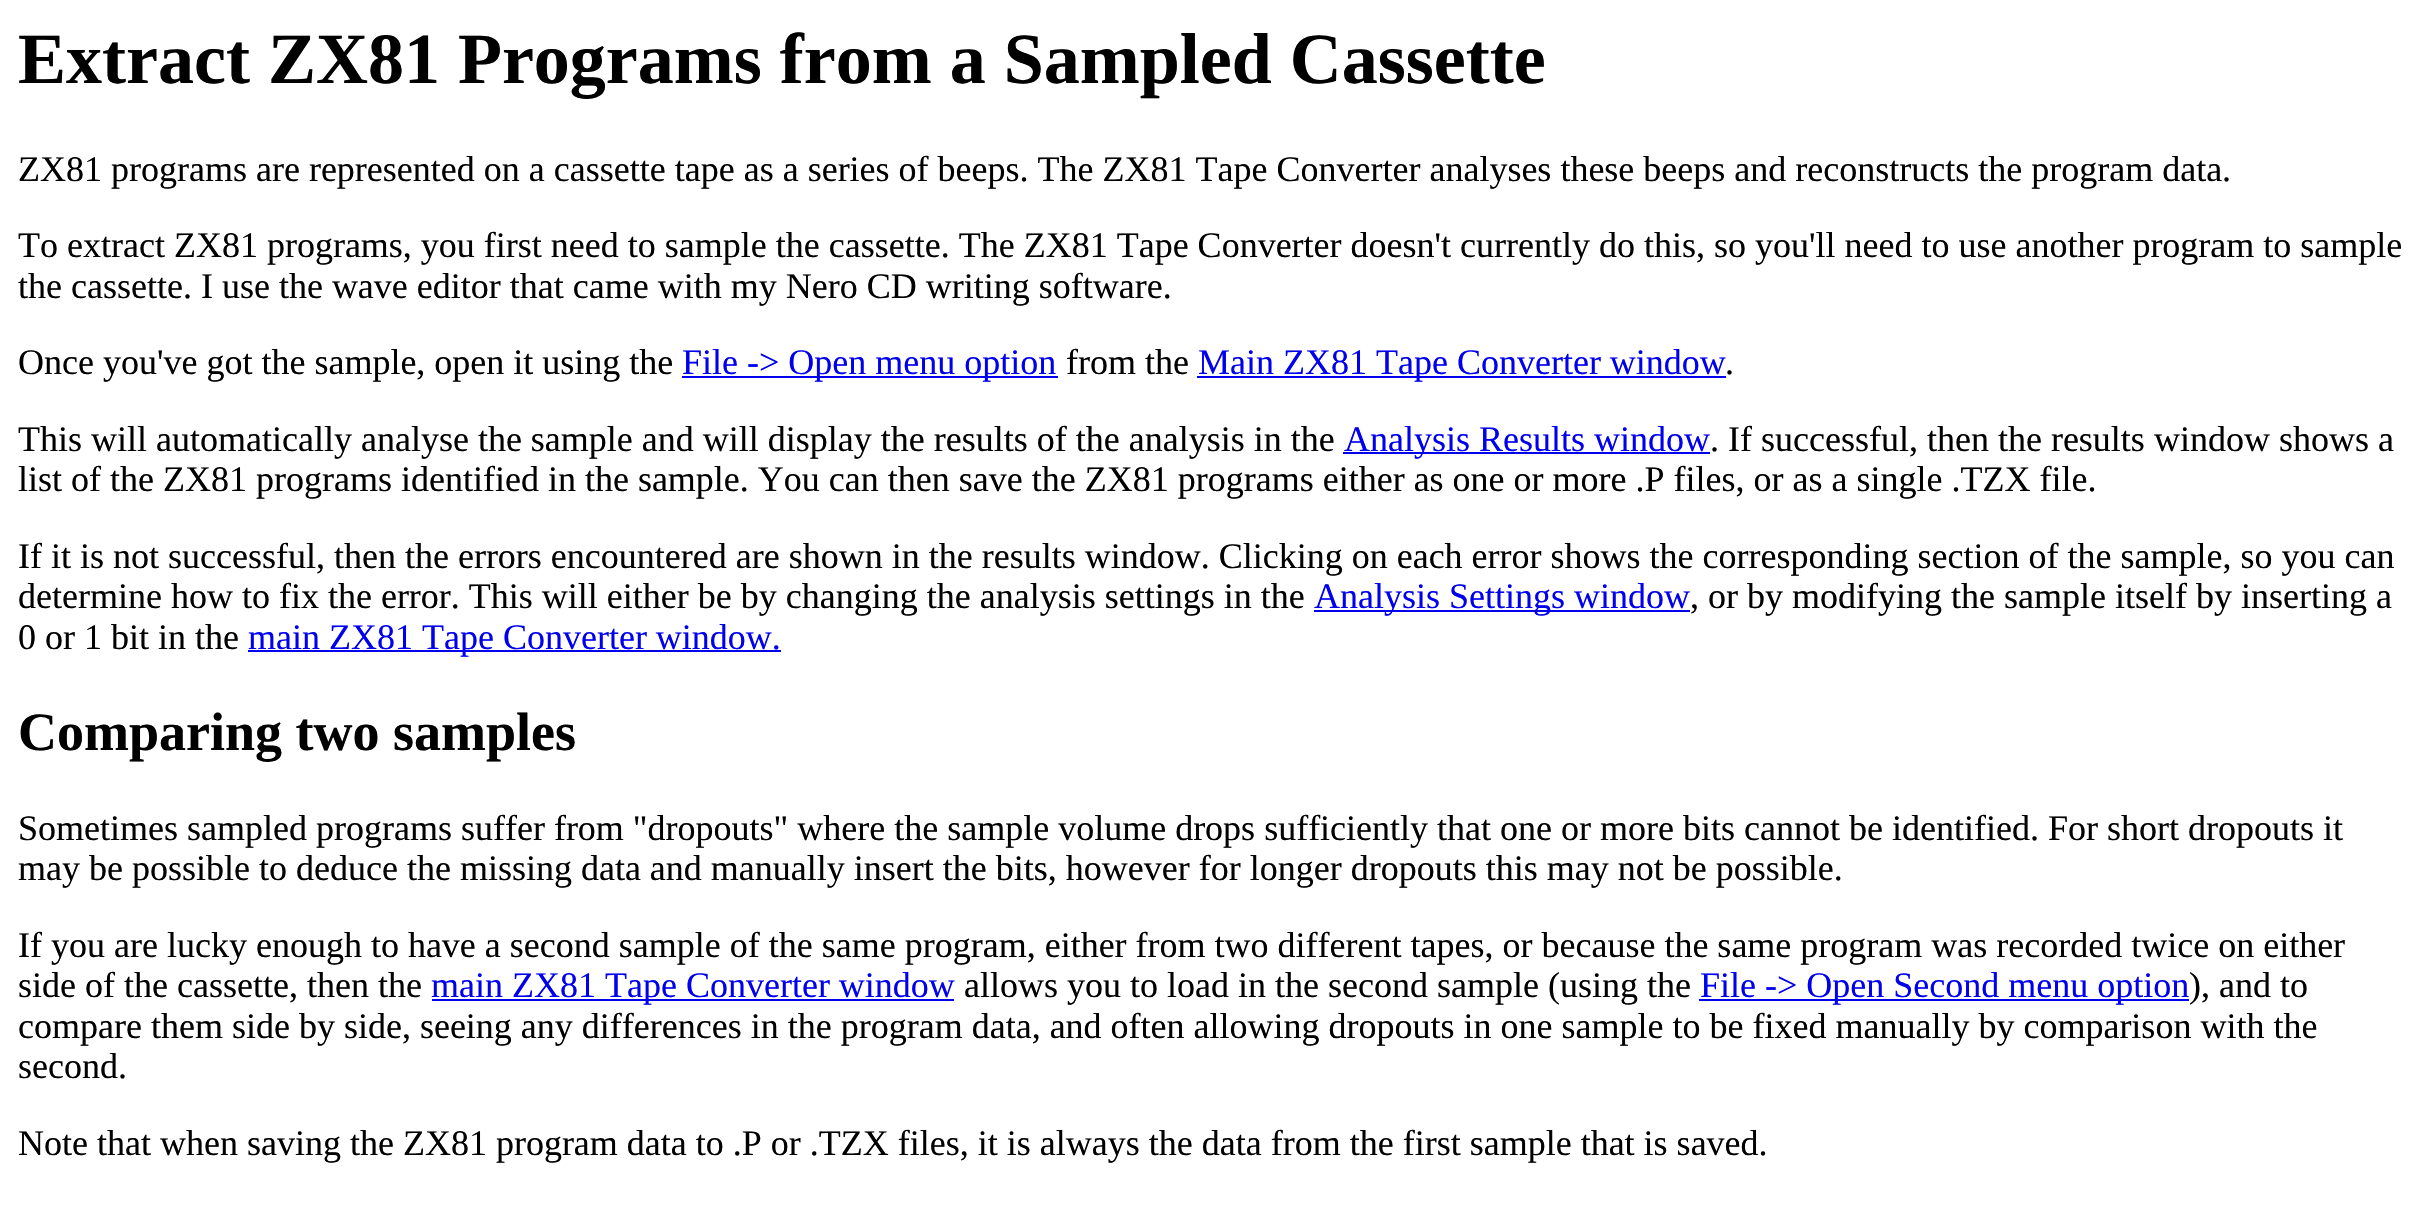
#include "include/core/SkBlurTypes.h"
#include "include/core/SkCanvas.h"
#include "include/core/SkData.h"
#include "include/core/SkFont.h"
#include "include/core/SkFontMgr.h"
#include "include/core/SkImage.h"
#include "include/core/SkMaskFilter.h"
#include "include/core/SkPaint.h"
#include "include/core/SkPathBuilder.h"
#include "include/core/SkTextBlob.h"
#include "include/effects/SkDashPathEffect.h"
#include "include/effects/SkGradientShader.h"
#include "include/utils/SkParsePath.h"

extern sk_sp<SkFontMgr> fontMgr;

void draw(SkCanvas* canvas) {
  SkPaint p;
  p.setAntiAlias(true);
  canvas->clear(SK_ColorWHITE);
  p.setColor(SkColorSetRGB(0, 0, 238));
  canvas->drawRect(SkRect::MakeLTRB(682, 376, 1058, 378), p);
  canvas->drawRect(SkRect::MakeLTRB(1197, 376, 1726, 378), p);
  canvas->drawRect(SkRect::MakeLTRB(1343, 452, 1710, 454), p);
  canvas->drawRect(SkRect::MakeLTRB(1314, 610, 1690, 612), p);
  canvas->drawRect(SkRect::MakeLTRB(248, 650, 781, 652), p);
  canvas->drawRect(SkRect::MakeLTRB(432, 999, 954, 1001), p);
  canvas->drawRect(SkRect::MakeLTRB(1699, 999, 2189, 1001), p);
  SkFont font1(fontMgr->matchFamilyStyle("Liberation Serif", SkFontStyle::Bold()), 72);
  font1.setSubpixel(true);
  p.setColor(SK_ColorBLACK);
  canvas->drawString("Extract ZX81 Programs from a Sampled Cassette", 18, 83, font1, p);
  SkFont font2(fontMgr->matchFamilyStyle("Liberation Serif", SkFontStyle::Normal()), 36);
  font2.setSubpixel(true);
  canvas->drawString("ZX81 programs are represented on a cassette tape as a series of beeps. The ZX81 Tape Converter analyses these beeps and reconstructs the program data.", 18, 181, font2, p);
  canvas->drawString("To extract ZX81 programs, you first need to sample the cassette. The ZX81 Tape Converter doesn't currently do this, so you'll need to use another program to sample", 18, 257, font2, p);
  canvas->drawString("the cassette. I use the wave editor that came with my Nero CD writing software.", 18, 298, font2, p);
  canvas->drawString("Once you've got the sample, open it using the", 18, 374, font2, p);
  p.setColor(SkColorSetRGB(0, 0, 238));
  canvas->drawString("File -> Open menu option", 682, 374, font2, p);
  p.setColor(SK_ColorBLACK);
  canvas->drawString("from the", 1066, 374, font2, p);
  p.setColor(SkColorSetRGB(0, 0, 238));
  canvas->drawString("Main ZX81 Tape Converter window", 1198, 374, font2, p);
  p.setColor(SK_ColorBLACK);
  canvas->drawString(".", 1725, 374, font2, p);
  canvas->drawString("This will automatically analyse the sample and will display the results of the analysis in the", 18, 451, font2, p);
  p.setColor(SkColorSetRGB(0, 0, 238));
  canvas->drawString("Analysis Results window", 1344, 451, font2, p);
  p.setColor(SK_ColorBLACK);
  canvas->drawString(". If successful, then the results window shows a", 1710, 451, font2, p);
  canvas->drawString("list of the ZX81 programs identified in the sample. You can then save the ZX81 programs either as one or more .P files, or as a single .TZX file.", 18, 491, font2, p);
  canvas->drawString("If it is not successful, then the errors encountered are shown in the results window. Clicking on each error shows the corresponding section of the sample, so you can", 18, 568, font2, p);
  canvas->drawString("determine how to fix the error. This will either be by changing the analysis settings in the", 18, 608, font2, p);
  p.setColor(SkColorSetRGB(0, 0, 238));
  canvas->drawString("Analysis Settings window", 1314, 608, font2, p);
  p.setColor(SK_ColorBLACK);
  canvas->drawString(", or by modifying the sample itself by inserting a", 1690, 608, font2, p);
  canvas->drawString("0 or 1 bit in the", 18, 649, font2, p);
  p.setColor(SkColorSetRGB(0, 0, 238));
  canvas->drawString("main ZX81 Tape Converter window.", 248, 649, font2, p);
  SkFont font3(fontMgr->matchFamilyStyle("Liberation Serif", SkFontStyle::Bold()), 54);
  font3.setSubpixel(true);
  p.setColor(SK_ColorBLACK);
  canvas->drawString("Comparing two samples", 18, 750, font3, p);
  canvas->drawString("Sometimes sampled programs suffer from \"dropouts\" where the sample volume drops sufficiently that one or more bits cannot be identified. For short dropouts it", 18, 840, font2, p);
  canvas->drawString("may be possible to deduce the missing data and manually insert the bits, however for longer dropouts this may not be possible.", 18, 880, font2, p);
  canvas->drawString("If you are lucky enough to have a second sample of the same program, either from two different tapes, or because the same program was recorded twice on either", 18, 957, font2, p);
  canvas->drawString("side of the cassette, then the", 18, 997, font2, p);
  p.setColor(SkColorSetRGB(0, 0, 238));
  canvas->drawString("main ZX81 Tape Converter window", 431, 997, font2, p);
  p.setColor(SK_ColorBLACK);
  canvas->drawString("allows you to load in the second sample (using the", 964, 997, font2, p);
  p.setColor(SkColorSetRGB(0, 0, 238));
  canvas->drawString("File -> Open Second menu option", 1700, 997, font2, p);
  p.setColor(SK_ColorBLACK);
  canvas->drawString("), and to", 2189, 997, font2, p);
  canvas->drawString("compare them side by side, seeing any differences in the program data, and often allowing dropouts in one sample to be fixed manually by comparison with the", 18, 1038, font2, p);
  canvas->drawString("second.", 18, 1078, font2, p);
  canvas->drawString("Note that when saving the ZX81 program data to .P or .TZX files, it is always the data from the first sample that is saved.", 18, 1155, font2, p);
}
